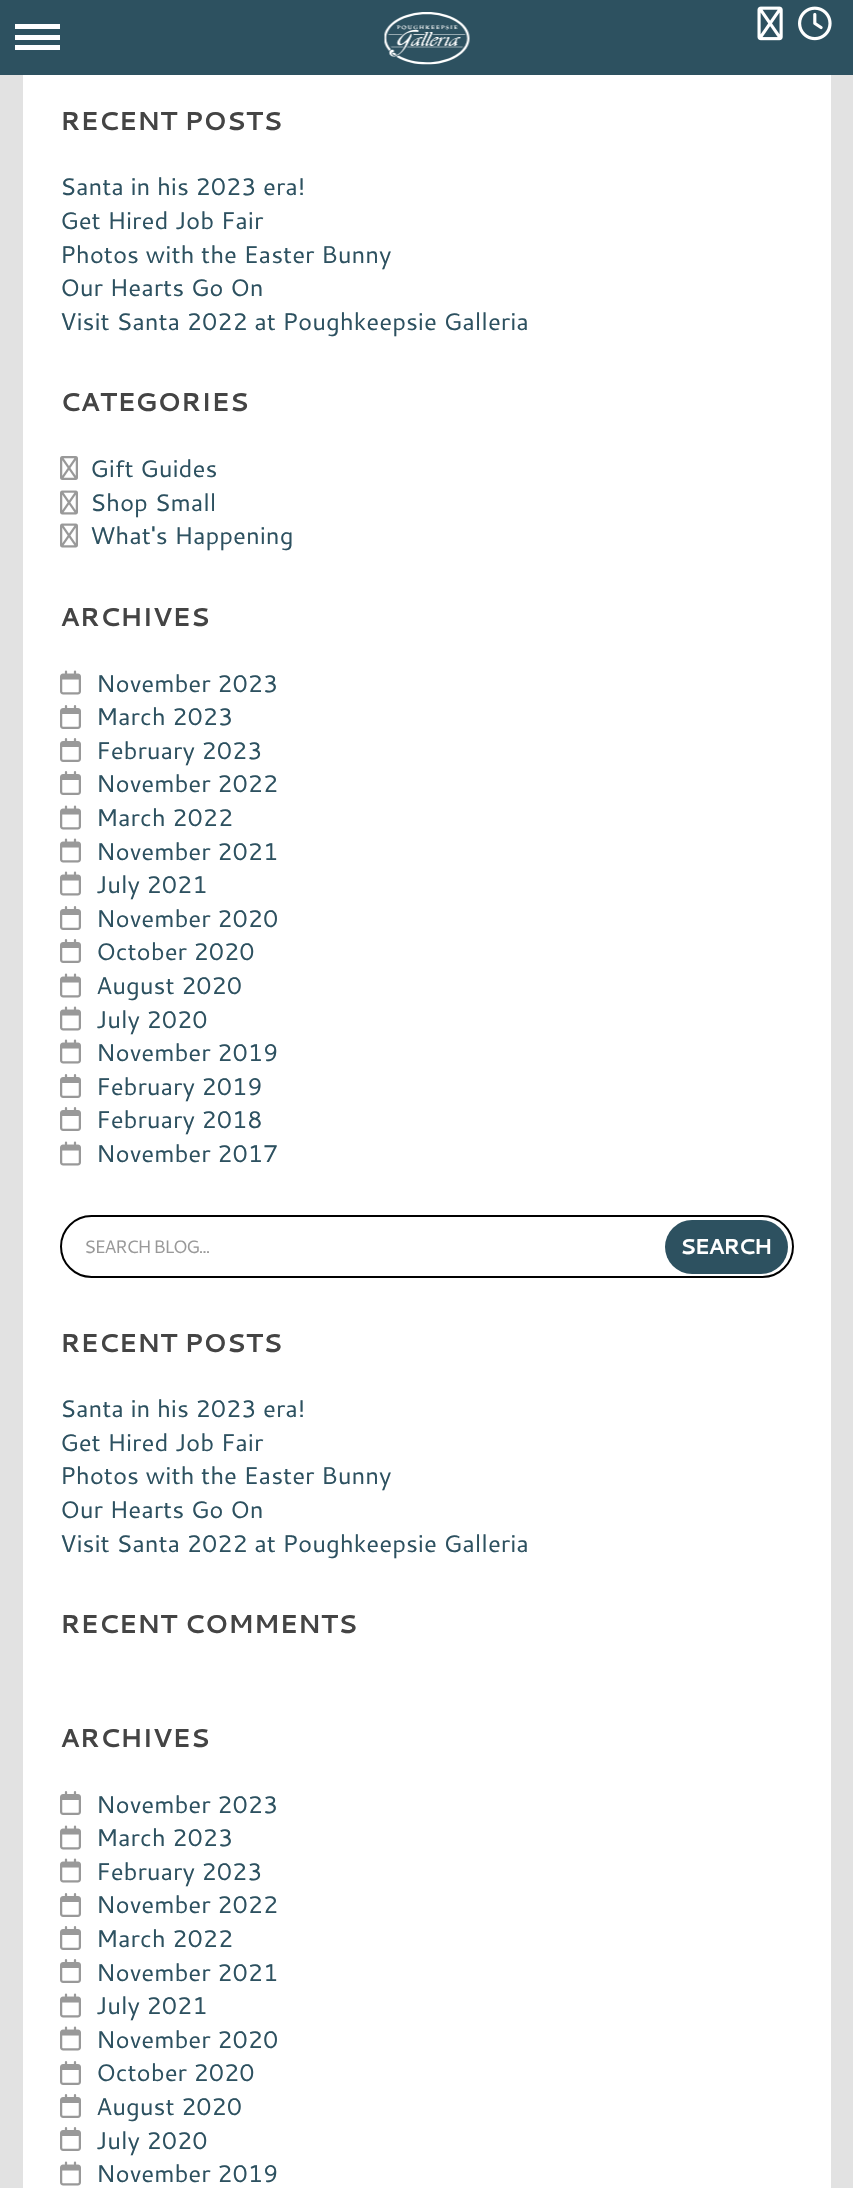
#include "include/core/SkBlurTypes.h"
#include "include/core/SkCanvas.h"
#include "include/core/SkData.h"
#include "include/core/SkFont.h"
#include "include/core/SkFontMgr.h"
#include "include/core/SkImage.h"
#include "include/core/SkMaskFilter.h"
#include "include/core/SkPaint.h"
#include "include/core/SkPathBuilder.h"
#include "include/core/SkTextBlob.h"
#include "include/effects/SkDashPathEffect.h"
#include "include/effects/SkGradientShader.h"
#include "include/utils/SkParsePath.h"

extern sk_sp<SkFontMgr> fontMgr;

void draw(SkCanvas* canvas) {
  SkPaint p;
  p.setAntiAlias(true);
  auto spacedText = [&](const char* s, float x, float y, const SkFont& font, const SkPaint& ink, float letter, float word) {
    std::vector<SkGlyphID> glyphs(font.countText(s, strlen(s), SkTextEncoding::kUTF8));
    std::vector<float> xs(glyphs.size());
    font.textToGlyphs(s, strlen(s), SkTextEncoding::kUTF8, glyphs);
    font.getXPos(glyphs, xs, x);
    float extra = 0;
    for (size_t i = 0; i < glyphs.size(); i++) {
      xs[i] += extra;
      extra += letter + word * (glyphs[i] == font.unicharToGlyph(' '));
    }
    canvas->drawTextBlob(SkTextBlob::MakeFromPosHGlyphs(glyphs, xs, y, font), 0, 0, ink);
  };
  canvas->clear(SkColorSetRGB(226, 226, 226));
  p.setColor(SkColorSetRGB(45, 81, 96));
  canvas->drawRect(SkRect::MakeLTRB(0, 0, 853, 75), p);
  p.setColor(SK_ColorWHITE);
  canvas->drawRect(SkRect::MakeLTRB(15, 35, 60, 40), p);
  canvas->drawRect(SkRect::MakeLTRB(15, 24, 60, 29), p);
  canvas->drawRect(SkRect::MakeLTRB(15, 45, 60, 50), p);
  canvas->drawImageRect(SkImages::DeferredFromEncodedData(SkData::MakeFromFileName("images/1.png")), SkRect::MakeLTRB(384, 12, 470, 65), SkSamplingOptions());
  canvas->drawImageRect(SkImages::DeferredFromEncodedData(SkData::MakeFromFileName("images/2.png")), SkRect::MakeLTRB(757, 6, 783, 41), SkSamplingOptions());
  canvas->drawImageRect(SkImages::DeferredFromEncodedData(SkData::MakeFromFileName("images/3.png")), SkRect::MakeLTRB(798, 6, 832, 41), SkSamplingOptions());
  canvas->drawRect(SkRect::MakeLTRB(23, 75, 831, 2188), p);
  canvas->drawImageRect(SkImages::DeferredFromEncodedData(SkData::MakeFromFileName("images/4.png")), SkRect::MakeLTRB(60, 456, 78, 480), SkSamplingOptions());
  canvas->drawImageRect(SkImages::DeferredFromEncodedData(SkData::MakeFromFileName("images/5.png")), SkRect::MakeLTRB(60, 490, 78, 515), SkSamplingOptions());
  canvas->drawImageRect(SkImages::DeferredFromEncodedData(SkData::MakeFromFileName("images/5.png")), SkRect::MakeLTRB(60, 523, 78, 548), SkSamplingOptions());
  canvas->drawImageRect(SkImages::DeferredFromEncodedData(SkData::MakeFromFileName("images/6.png")), SkRect::MakeLTRB(60, 670, 81, 695), SkSamplingOptions());
  canvas->drawImageRect(SkImages::DeferredFromEncodedData(SkData::MakeFromFileName("images/7.png")), SkRect::MakeLTRB(60, 705, 81, 729), SkSamplingOptions());
  canvas->drawImageRect(SkImages::DeferredFromEncodedData(SkData::MakeFromFileName("images/7.png")), SkRect::MakeLTRB(60, 738, 81, 762), SkSamplingOptions());
  canvas->drawImageRect(SkImages::DeferredFromEncodedData(SkData::MakeFromFileName("images/7.png")), SkRect::MakeLTRB(60, 771, 81, 795), SkSamplingOptions());
  canvas->drawImageRect(SkImages::DeferredFromEncodedData(SkData::MakeFromFileName("images/6.png")), SkRect::MakeLTRB(60, 805, 81, 830), SkSamplingOptions());
  canvas->drawImageRect(SkImages::DeferredFromEncodedData(SkData::MakeFromFileName("images/6.png")), SkRect::MakeLTRB(60, 838, 81, 863), SkSamplingOptions());
  canvas->drawImageRect(SkImages::DeferredFromEncodedData(SkData::MakeFromFileName("images/6.png")), SkRect::MakeLTRB(60, 871, 81, 896), SkSamplingOptions());
  canvas->drawImageRect(SkImages::DeferredFromEncodedData(SkData::MakeFromFileName("images/7.png")), SkRect::MakeLTRB(60, 906, 81, 930), SkSamplingOptions());
  canvas->drawImageRect(SkImages::DeferredFromEncodedData(SkData::MakeFromFileName("images/7.png")), SkRect::MakeLTRB(60, 939, 81, 963), SkSamplingOptions());
  canvas->drawImageRect(SkImages::DeferredFromEncodedData(SkData::MakeFromFileName("images/6.png")), SkRect::MakeLTRB(60, 973, 81, 998), SkSamplingOptions());
  canvas->drawImageRect(SkImages::DeferredFromEncodedData(SkData::MakeFromFileName("images/6.png")), SkRect::MakeLTRB(60, 1006, 81, 1031), SkSamplingOptions());
  canvas->drawImageRect(SkImages::DeferredFromEncodedData(SkData::MakeFromFileName("images/6.png")), SkRect::MakeLTRB(60, 1039, 81, 1064), SkSamplingOptions());
  canvas->drawImageRect(SkImages::DeferredFromEncodedData(SkData::MakeFromFileName("images/7.png")), SkRect::MakeLTRB(60, 1074, 81, 1098), SkSamplingOptions());
  canvas->drawImageRect(SkImages::DeferredFromEncodedData(SkData::MakeFromFileName("images/7.png")), SkRect::MakeLTRB(60, 1107, 81, 1131), SkSamplingOptions());
  canvas->drawImageRect(SkImages::DeferredFromEncodedData(SkData::MakeFromFileName("images/6.png")), SkRect::MakeLTRB(60, 1141, 81, 1166), SkSamplingOptions());
  p.setStyle(SkPaint::kStroke_Style);
  p.setStrokeWidth(2);
  p.setColor(SK_ColorBLACK);
  canvas->drawRoundRect(SkRect::MakeLTRB(61, 1216, 793, 1277), 30.5f, 30.5f, p);
  p.setStyle(SkPaint::kFill_Style);
  p.setColor(SkColorSetRGB(45, 81, 96));
  canvas->drawRoundRect(SkRect::MakeLTRB(665, 1220, 788, 1274), 27, 27, p);
  canvas->drawImageRect(SkImages::DeferredFromEncodedData(SkData::MakeFromFileName("images/7.png")), SkRect::MakeLTRB(60, 1791, 81, 1815), SkSamplingOptions());
  canvas->drawImageRect(SkImages::DeferredFromEncodedData(SkData::MakeFromFileName("images/6.png")), SkRect::MakeLTRB(60, 1825, 81, 1850), SkSamplingOptions());
  canvas->drawImageRect(SkImages::DeferredFromEncodedData(SkData::MakeFromFileName("images/6.png")), SkRect::MakeLTRB(60, 1858, 81, 1883), SkSamplingOptions());
  canvas->drawImageRect(SkImages::DeferredFromEncodedData(SkData::MakeFromFileName("images/7.png")), SkRect::MakeLTRB(60, 1893, 81, 1917), SkSamplingOptions());
  canvas->drawImageRect(SkImages::DeferredFromEncodedData(SkData::MakeFromFileName("images/7.png")), SkRect::MakeLTRB(60, 1926, 81, 1950), SkSamplingOptions());
  canvas->drawImageRect(SkImages::DeferredFromEncodedData(SkData::MakeFromFileName("images/7.png")), SkRect::MakeLTRB(60, 1959, 81, 1983), SkSamplingOptions());
  canvas->drawImageRect(SkImages::DeferredFromEncodedData(SkData::MakeFromFileName("images/6.png")), SkRect::MakeLTRB(60, 1993, 81, 2018), SkSamplingOptions());
  canvas->drawImageRect(SkImages::DeferredFromEncodedData(SkData::MakeFromFileName("images/6.png")), SkRect::MakeLTRB(60, 2026, 81, 2051), SkSamplingOptions());
  canvas->drawImageRect(SkImages::DeferredFromEncodedData(SkData::MakeFromFileName("images/7.png")), SkRect::MakeLTRB(60, 2061, 81, 2085), SkSamplingOptions());
  canvas->drawImageRect(SkImages::DeferredFromEncodedData(SkData::MakeFromFileName("images/7.png")), SkRect::MakeLTRB(60, 2094, 81, 2118), SkSamplingOptions());
  canvas->drawImageRect(SkImages::DeferredFromEncodedData(SkData::MakeFromFileName("images/7.png")), SkRect::MakeLTRB(60, 2127, 81, 2151), SkSamplingOptions());
  canvas->drawImageRect(SkImages::DeferredFromEncodedData(SkData::MakeFromFileName("images/6.png")), SkRect::MakeLTRB(60, 2161, 81, 2186), SkSamplingOptions());
  SkFont font1(fontMgr->matchFamilyStyle("Cantarell", SkFontStyle::Bold()), 25.8f);
  font1.setSubpixel(true);
  p.setColor(SkColorSetRGB(68, 68, 68));
  canvas->drawString("RECENT POSTS", 60, 130, font1, p);
  SkFont font2(fontMgr->matchFamilyStyle("Cantarell", SkFontStyle::Normal()), 24);
  font2.setSubpixel(true);
  p.setColor(SkColorSetRGB(45, 81, 96));
  canvas->drawString("Santa in his 2023 era!", 60, 195, font2, p);
  canvas->drawString("Get Hired Job Fair", 60, 229, font2, p);
  canvas->drawString("Photos with the Easter Bunny", 60, 263, font2, p);
  canvas->drawString("Our Hearts Go On", 60, 296, font2, p);
  canvas->drawString("Visit Santa 2022 at Poughkeepsie Galleria", 60, 330, font2, p);
  p.setColor(SkColorSetRGB(68, 68, 68));
  canvas->drawString("CATEGORIES", 60, 411, font1, p);
  p.setColor(SkColorSetRGB(45, 81, 96));
  canvas->drawString("Gift Guides", 90, 477, font2, p);
  canvas->drawString("Shop Small", 90, 511, font2, p);
  canvas->drawString("What's Happening", 90, 544, font2, p);
  p.setColor(SkColorSetRGB(68, 68, 68));
  canvas->drawString("ARCHIVES", 60, 626, font1, p);
  p.setColor(SkColorSetRGB(45, 81, 96));
  canvas->drawString("November 2023", 96, 692, font2, p);
  canvas->drawString("March 2023", 96, 725, font2, p);
  canvas->drawString("February 2023", 96, 759, font2, p);
  canvas->drawString("November 2022", 96, 792, font2, p);
  canvas->drawString("March 2022", 96, 826, font2, p);
  canvas->drawString("November 2021", 96, 860, font2, p);
  canvas->drawString("July 2021", 96, 893, font2, p);
  canvas->drawString("November 2020", 96, 927, font2, p);
  canvas->drawString("October 2020", 96, 960, font2, p);
  canvas->drawString("August 2020", 96, 994, font2, p);
  canvas->drawString("July 2020", 96, 1028, font2, p);
  canvas->drawString("November 2019", 96, 1061, font2, p);
  canvas->drawString("February 2019", 96, 1095, font2, p);
  canvas->drawString("February 2018", 96, 1128, font2, p);
  canvas->drawString("November 2017", 96, 1162, font2, p);
  SkFont font3(fontMgr->matchFamilyStyle("Cantarell", SkFontStyle::Normal()), 18);
  font3.setSubpixel(true);
  p.setColor(SkColorSetRGB(153, 153, 153));
  spacedText("SEARCH BLOG...", 84, 1253, font3, p, -1.5f, 0);
  SkFont font4(fontMgr->matchFamilyStyle("Cantarell", SkFontStyle::Bold()), 21.5f);
  font4.setSubpixel(true);
  p.setColor(SK_ColorWHITE);
  spacedText("SEARCH", 680, 1254, font4, p, -1.5f, 0);
  p.setColor(SkColorSetRGB(68, 68, 68));
  canvas->drawString("RECENT POSTS", 60, 1352, font1, p);
  p.setColor(SkColorSetRGB(45, 81, 96));
  canvas->drawString("Santa in his 2023 era!", 60, 1417, font2, p);
  canvas->drawString("Get Hired Job Fair", 60, 1451, font2, p);
  canvas->drawString("Photos with the Easter Bunny", 60, 1484, font2, p);
  canvas->drawString("Our Hearts Go On", 60, 1518, font2, p);
  canvas->drawString("Visit Santa 2022 at Poughkeepsie Galleria", 60, 1552, font2, p);
  p.setColor(SkColorSetRGB(68, 68, 68));
  canvas->drawString("RECENT COMMENTS", 60, 1633, font1, p);
  canvas->drawString("ARCHIVES", 60, 1747, font1, p);
  p.setColor(SkColorSetRGB(45, 81, 96));
  canvas->drawString("November 2023", 96, 1813, font2, p);
  canvas->drawString("March 2023", 96, 1846, font2, p);
  canvas->drawString("February 2023", 96, 1880, font2, p);
  canvas->drawString("November 2022", 96, 1913, font2, p);
  canvas->drawString("March 2022", 96, 1947, font2, p);
  canvas->drawString("November 2021", 96, 1981, font2, p);
  canvas->drawString("July 2021", 96, 2014, font2, p);
  canvas->drawString("November 2020", 96, 2048, font2, p);
  canvas->drawString("October 2020", 96, 2081, font2, p);
  canvas->drawString("August 2020", 96, 2115, font2, p);
  canvas->drawString("July 2020", 96, 2149, font2, p);
  canvas->drawString("November 2019", 96, 2182, font2, p);
}
